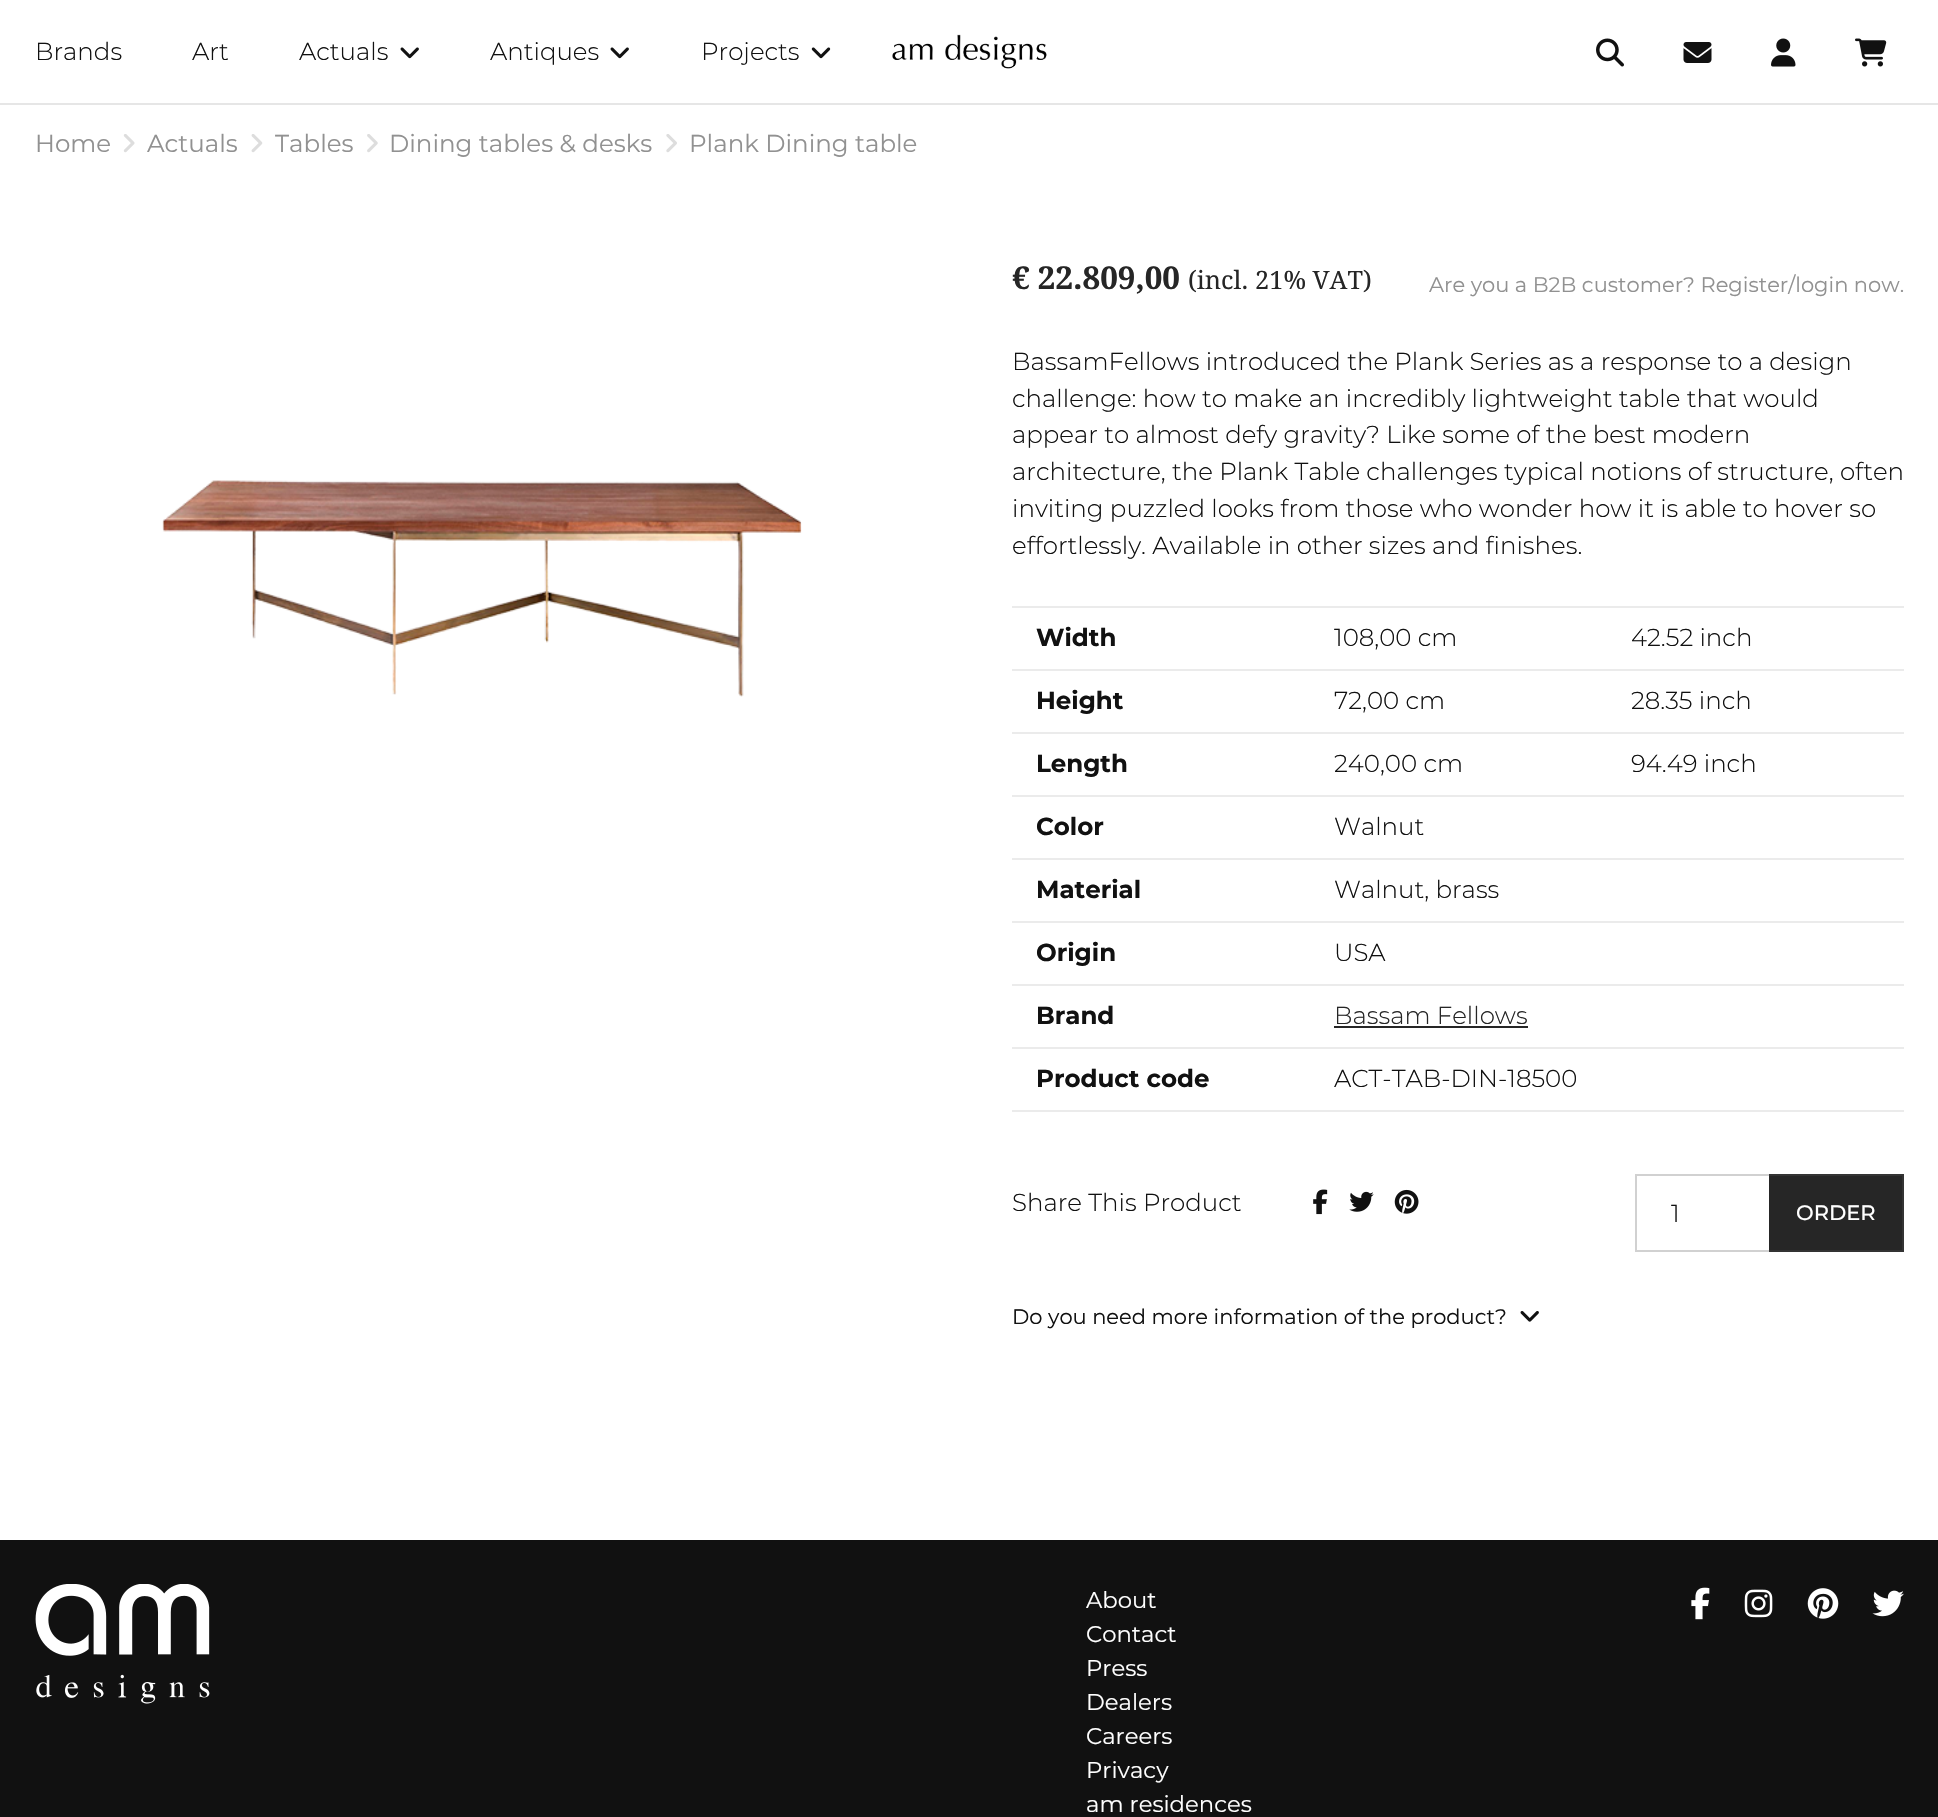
#include "include/core/SkBlurTypes.h"
#include "include/core/SkCanvas.h"
#include "include/core/SkData.h"
#include "include/core/SkFont.h"
#include "include/core/SkFontMgr.h"
#include "include/core/SkImage.h"
#include "include/core/SkMaskFilter.h"
#include "include/core/SkPaint.h"
#include "include/core/SkPathBuilder.h"
#include "include/core/SkTextBlob.h"
#include "include/effects/SkDashPathEffect.h"
#include "include/effects/SkGradientShader.h"
#include "include/utils/SkParsePath.h"

extern sk_sp<SkFontMgr> fontMgr;

void draw(SkCanvas* canvas) {
  SkPaint p;
  p.setAntiAlias(true);
  canvas->clear(SK_ColorWHITE);
  p.setColor(SkColorSetRGB(230, 230, 230));
  canvas->drawRect(SkRect::MakeLTRB(0, 103, 1938, 105), p);
  canvas->drawImageRect(SkImages::DeferredFromEncodedData(SkData::MakeFromFileName("images/1.png")), SkRect::MakeLTRB(400, 47, 419, 59), SkSamplingOptions());
  canvas->drawImageRect(SkImages::DeferredFromEncodedData(SkData::MakeFromFileName("images/1.png")), SkRect::MakeLTRB(610, 47, 629, 59), SkSamplingOptions());
  canvas->drawImageRect(SkImages::DeferredFromEncodedData(SkData::MakeFromFileName("images/2.png")), SkRect::MakeLTRB(811, 47, 831, 59), SkSamplingOptions());
  canvas->drawImageRect(SkImages::DeferredFromEncodedData(SkData::MakeFromFileName("images/3.png")), SkRect::MakeLTRB(892, 34, 1047, 69), SkSamplingOptions());
  canvas->drawImageRect(SkImages::DeferredFromEncodedData(SkData::MakeFromFileName("images/4.png")), SkRect::MakeLTRB(1596, 38, 1624, 67), SkSamplingOptions());
  canvas->drawImageRect(SkImages::DeferredFromEncodedData(SkData::MakeFromFileName("images/5.png")), SkRect::MakeLTRB(1683, 42, 1712, 63), SkSamplingOptions());
  canvas->drawImageRect(SkImages::DeferredFromEncodedData(SkData::MakeFromFileName("images/6.png")), SkRect::MakeLTRB(1771, 38, 1796, 67), SkSamplingOptions());
  canvas->drawImageRect(SkImages::DeferredFromEncodedData(SkData::MakeFromFileName("images/7.png")), SkRect::MakeLTRB(1855, 38, 1887, 67), SkSamplingOptions());
  canvas->drawImageRect(SkImages::DeferredFromEncodedData(SkData::MakeFromFileName("images/8.png")), SkRect::MakeLTRB(123, 134, 135, 153), SkSamplingOptions());
  canvas->drawImageRect(SkImages::DeferredFromEncodedData(SkData::MakeFromFileName("images/9.png")), SkRect::MakeLTRB(251, 134, 263, 153), SkSamplingOptions());
  canvas->drawImageRect(SkImages::DeferredFromEncodedData(SkData::MakeFromFileName("images/10.png")), SkRect::MakeLTRB(367, 134, 378, 153), SkSamplingOptions());
  canvas->drawImageRect(SkImages::DeferredFromEncodedData(SkData::MakeFromFileName("images/11.png")), SkRect::MakeLTRB(666, 134, 677, 153), SkSamplingOptions());
  canvas->drawImageRect(SkImages::DeferredFromEncodedData(SkData::MakeFromFileName("images/12.png")), SkRect::MakeLTRB(162, 480, 802, 697), SkSamplingOptions());
  p.setColor(SkColorSetRGB(235, 235, 235));
  canvas->drawRect(SkRect::MakeLTRB(1012, 606, 1904, 608), p);
  canvas->drawRect(SkRect::MakeLTRB(1012, 1110, 1904, 1112), p);
  canvas->drawRect(SkRect::MakeLTRB(1012, 669, 1904, 671), p);
  canvas->drawRect(SkRect::MakeLTRB(1012, 732, 1904, 734), p);
  canvas->drawRect(SkRect::MakeLTRB(1012, 795, 1904, 797), p);
  canvas->drawRect(SkRect::MakeLTRB(1012, 858, 1904, 860), p);
  canvas->drawRect(SkRect::MakeLTRB(1012, 921, 1904, 923), p);
  canvas->drawRect(SkRect::MakeLTRB(1012, 984, 1904, 986), p);
  canvas->drawRect(SkRect::MakeLTRB(1012, 1047, 1904, 1049), p);
  p.setColor(SkColorSetRGB(38, 38, 38));
  canvas->drawRect(SkRect::MakeLTRB(1334, 1026, 1528, 1028), p);
  canvas->drawImageRect(SkImages::DeferredFromEncodedData(SkData::MakeFromFileName("images/13.png")), SkRect::MakeLTRB(1313, 1189, 1328, 1215), SkSamplingOptions());
  canvas->drawImageRect(SkImages::DeferredFromEncodedData(SkData::MakeFromFileName("images/14.png")), SkRect::MakeLTRB(1349, 1191, 1374, 1212), SkSamplingOptions());
  canvas->drawImageRect(SkImages::DeferredFromEncodedData(SkData::MakeFromFileName("images/15.png")), SkRect::MakeLTRB(1394, 1189, 1419, 1214), SkSamplingOptions());
  p.setColor(SkColorSetRGB(209, 209, 209));
  canvas->drawRect(SkRect::MakeLTRB(1635, 1174, 1769, 1176), p);
  canvas->drawRect(SkRect::MakeLTRB(1635, 1250, 1769, 1252), p);
  canvas->drawRect(SkRect::MakeLTRB(1635, 1174, 1637, 1251), p);
  p.setColor(SkColorSetRGB(38, 38, 38));
  canvas->drawRect(SkRect::MakeLTRB(1769, 1176, 1902, 1250), p);
  p.setColor(SkColorSetRGB(51, 51, 51));
  canvas->drawRect(SkRect::MakeLTRB(1769, 1174, 1904, 1176), p);
  canvas->drawRect(SkRect::MakeLTRB(1902, 1174, 1904, 1251), p);
  canvas->drawRect(SkRect::MakeLTRB(1769, 1250, 1904, 1252), p);
  canvas->drawImageRect(SkImages::DeferredFromEncodedData(SkData::MakeFromFileName("images/16.png")), SkRect::MakeLTRB(1520, 1311, 1539, 1322), SkSamplingOptions());
  p.setColor(SkColorSetRGB(17, 17, 17));
  canvas->drawRect(SkRect::MakeLTRB(0, 1540, 1938, 1817), p);
  canvas->drawImageRect(SkImages::DeferredFromEncodedData(SkData::MakeFromFileName("images/17.png")), SkRect::MakeLTRB(35, 1584, 210, 1704), SkSamplingOptions());
  canvas->drawImageRect(SkImages::DeferredFromEncodedData(SkData::MakeFromFileName("images/18.png")), SkRect::MakeLTRB(1691, 1587, 1710, 1620), SkSamplingOptions());
  canvas->drawImageRect(SkImages::DeferredFromEncodedData(SkData::MakeFromFileName("images/19.png")), SkRect::MakeLTRB(1744, 1589, 1773, 1618), SkSamplingOptions());
  canvas->drawImageRect(SkImages::DeferredFromEncodedData(SkData::MakeFromFileName("images/20.png")), SkRect::MakeLTRB(1807, 1588, 1839, 1619), SkSamplingOptions());
  canvas->drawImageRect(SkImages::DeferredFromEncodedData(SkData::MakeFromFileName("images/21.png")), SkRect::MakeLTRB(1872, 1590, 1904, 1617), SkSamplingOptions());
  SkFont font1(fontMgr->matchFamilyStyle("Montserrat", SkFontStyle(300, SkFontStyle::kNormal_Width, SkFontStyle::kUpright_Slant)), 24.5f);
  font1.setSubpixel(true);
  canvas->drawString("Brands", 35, 60, font1, p);
  canvas->drawString("Art", 192, 60, font1, p);
  canvas->drawString("Actuals", 299, 60, font1, p);
  canvas->drawString("Antiques", 490, 60, font1, p);
  canvas->drawString("Projects", 701, 60, font1, p);
  SkFont font2(fontMgr->matchFamilyStyle("Montserrat", SkFontStyle::Normal()), 24.5f);
  font2.setSubpixel(true);
  p.setColor(SkColorSetRGB(145, 145, 145));
  canvas->drawString("Home", 35, 152, font2, p);
  canvas->drawString("Actuals", 147, 152, font2, p);
  canvas->drawString("Tables", 275, 152, font2, p);
  canvas->drawString("Dining tables & desks", 389, 152, font2, p);
  canvas->drawString("Plank Dining table", 689, 152, font2, p);
  SkFont font3(fontMgr->matchFamilyStyle("Droid Serif", SkFontStyle::Bold()), 31.5f);
  font3.setSubpixel(true);
  p.setColor(SkColorSetRGB(38, 38, 38));
  canvas->drawString("€ 22.809,00", 1012, 289, font3, p);
  SkFont font4(fontMgr->matchFamilyStyle("Droid Serif", SkFontStyle::Normal()), 25.25f);
  font4.setSubpixel(true);
  canvas->drawString("(incl. 21% VAT)", 1188, 289, font4, p);
  SkFont font5(fontMgr->matchFamilyStyle("Montserrat", SkFontStyle::Normal()), 21);
  font5.setSubpixel(true);
  p.setColor(SkColorSetRGB(145, 145, 145));
  canvas->drawString("Are you a B2B customer? Register/login now.", 1429, 292, font5, p);
  p.setColor(SkColorSetRGB(17, 17, 17));
  canvas->drawString("BassamFellows introduced the Plank Series as a response to a design", 1012, 370, font1, p);
  canvas->drawString("challenge: how to make an incredibly lightweight table that would", 1012, 407, font1, p);
  canvas->drawString("appear to almost defy gravity? Like some of the best modern", 1012, 443, font1, p);
  canvas->drawString("architecture, the Plank Table challenges typical notions of structure, often", 1012, 480, font1, p);
  canvas->drawString("inviting puzzled looks from those who wonder how it is able to hover so", 1012, 517, font1, p);
  canvas->drawString("effortlessly. Available in other sizes and finishes.", 1012, 554, font1, p);
  SkFont font6(fontMgr->matchFamilyStyle("Montserrat", SkFontStyle::Bold()), 24.5f);
  font6.setSubpixel(true);
  canvas->drawString("Width", 1036, 646, font6, p);
  canvas->drawString("108,00 cm", 1334, 646, font1, p);
  canvas->drawString("42.52 inch", 1631, 646, font1, p);
  canvas->drawString("Height", 1036, 709, font6, p);
  canvas->drawString("72,00 cm", 1334, 709, font1, p);
  canvas->drawString("28.35 inch", 1631, 709, font1, p);
  canvas->drawString("Length", 1036, 772, font6, p);
  canvas->drawString("240,00 cm", 1334, 772, font1, p);
  canvas->drawString("94.49 inch", 1631, 772, font1, p);
  canvas->drawString("Color", 1036, 835, font6, p);
  canvas->drawString("Walnut", 1334, 835, font1, p);
  canvas->drawString("Material", 1036, 898, font6, p);
  canvas->drawString("Walnut, brass", 1334, 898, font1, p);
  canvas->drawString("Origin", 1036, 961, font6, p);
  canvas->drawString("USA", 1334, 961, font1, p);
  canvas->drawString("Brand", 1036, 1024, font6, p);
  p.setColor(SkColorSetRGB(38, 38, 38));
  canvas->drawString("Bassam Fellows", 1334, 1024, font1, p);
  p.setColor(SkColorSetRGB(17, 17, 17));
  canvas->drawString("Product code", 1036, 1087, font6, p);
  canvas->drawString("ACT-TAB-DIN-18500", 1334, 1087, font1, p);
  canvas->drawString("Share This Product", 1012, 1211, font1, p);
  canvas->drawString("1", 1671, 1222, font1, p);
  SkFont font7(fontMgr->matchFamilyStyle("Montserrat", SkFontStyle(500, SkFontStyle::kNormal_Width, SkFontStyle::kUpright_Slant)), 21);
  font7.setSubpixel(true);
  p.setColor(SK_ColorWHITE);
  canvas->drawString("ORDER", 1796, 1220, font7, p);
  p.setColor(SkColorSetRGB(17, 17, 17));
  canvas->drawString("Do you need more information of the product?", 1012, 1324, font5, p);
  SkFont font8(fontMgr->matchFamilyStyle("Montserrat", SkFontStyle::Normal()), 22.75f);
  font8.setSubpixel(true);
  p.setColor(SK_ColorWHITE);
  canvas->drawString("About", 1086, 1608, font8, p);
  canvas->drawString("Contact", 1086, 1642, font8, p);
  canvas->drawString("Press", 1086, 1676, font8, p);
  canvas->drawString("Dealers", 1086, 1710, font8, p);
  canvas->drawString("Careers", 1086, 1744, font8, p);
  canvas->drawString("Privacy", 1086, 1778, font8, p);
  canvas->drawString("am residences", 1086, 1812, font8, p);
}
